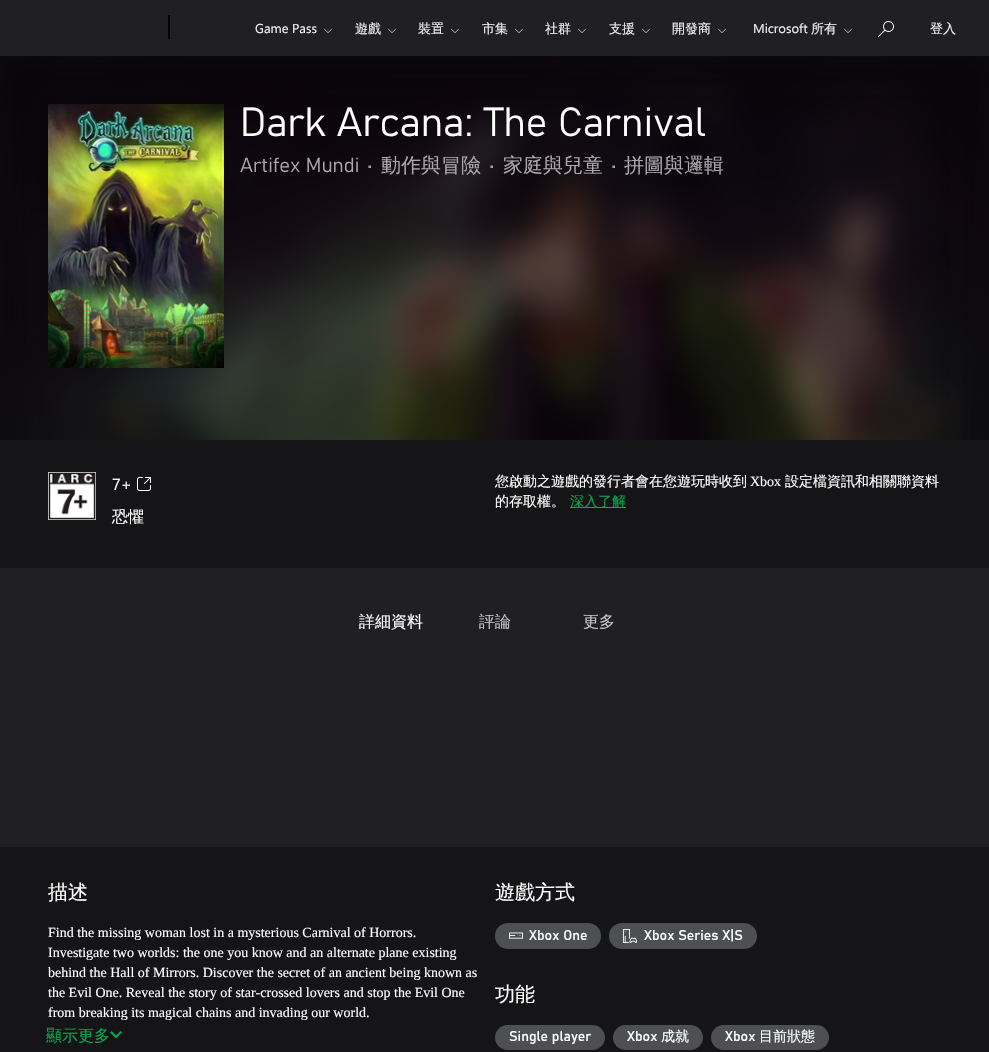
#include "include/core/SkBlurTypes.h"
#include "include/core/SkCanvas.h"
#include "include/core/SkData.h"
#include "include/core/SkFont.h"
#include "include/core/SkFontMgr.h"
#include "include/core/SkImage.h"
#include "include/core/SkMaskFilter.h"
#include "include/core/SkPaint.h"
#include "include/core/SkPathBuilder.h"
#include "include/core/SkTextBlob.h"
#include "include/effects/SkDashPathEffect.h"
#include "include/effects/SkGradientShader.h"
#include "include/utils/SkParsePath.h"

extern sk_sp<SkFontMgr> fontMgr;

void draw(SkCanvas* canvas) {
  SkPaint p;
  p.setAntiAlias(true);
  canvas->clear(SkColorSetRGB(32, 31, 36));
  p.setColor(SkColorSetRGB(12, 11, 13));
  canvas->drawRect(SkRect::MakeLTRB(0, 56, 989, 440), p);
  p.setColor(SK_ColorBLACK);
  canvas->drawRect(SkRect::MakeLTRB(168, 15, 170, 39), p);
  canvas->drawImageRect(SkImages::DeferredFromEncodedData(SkData::MakeFromFileName("images/1.png")), SkRect::MakeLTRB(324, 28, 332, 33), SkSamplingOptions());
  canvas->drawImageRect(SkImages::DeferredFromEncodedData(SkData::MakeFromFileName("images/1.png")), SkRect::MakeLTRB(388, 28, 396, 33), SkSamplingOptions());
  canvas->drawImageRect(SkImages::DeferredFromEncodedData(SkData::MakeFromFileName("images/1.png")), SkRect::MakeLTRB(451, 28, 459, 33), SkSamplingOptions());
  canvas->drawImageRect(SkImages::DeferredFromEncodedData(SkData::MakeFromFileName("images/1.png")), SkRect::MakeLTRB(515, 28, 523, 33), SkSamplingOptions());
  canvas->drawImageRect(SkImages::DeferredFromEncodedData(SkData::MakeFromFileName("images/1.png")), SkRect::MakeLTRB(578, 28, 586, 33), SkSamplingOptions());
  canvas->drawImageRect(SkImages::DeferredFromEncodedData(SkData::MakeFromFileName("images/1.png")), SkRect::MakeLTRB(642, 28, 650, 33), SkSamplingOptions());
  canvas->drawImageRect(SkImages::DeferredFromEncodedData(SkData::MakeFromFileName("images/1.png")), SkRect::MakeLTRB(718, 28, 726, 33), SkSamplingOptions());
  canvas->drawImageRect(SkImages::DeferredFromEncodedData(SkData::MakeFromFileName("images/1.png")), SkRect::MakeLTRB(844, 28, 852, 33), SkSamplingOptions());
  canvas->drawImageRect(SkImages::DeferredFromEncodedData(SkData::MakeFromFileName("images/2.png")), SkRect::MakeLTRB(878, 21, 894, 37), SkSamplingOptions());
  canvas->drawImageRect(SkImages::DeferredFromEncodedData(SkData::MakeFromFileName("images/3.png")), SkRect::MakeLTRB(0, 56, 989, 440), SkSamplingOptions());
  canvas->drawImageRect(SkImages::DeferredFromEncodedData(SkData::MakeFromFileName("images/4.png")), SkRect::MakeLTRB(48, 104, 224, 368), SkSamplingOptions());
  p.setColor(SkColorSetRGB(21, 21, 23));
  canvas->drawRect(SkRect::MakeLTRB(0, 440, 989, 568), p);
  canvas->drawImageRect(SkImages::DeferredFromEncodedData(SkData::MakeFromFileName("images/5.png")), SkRect::MakeLTRB(48, 472, 96, 520), SkSamplingOptions());
  canvas->drawImageRect(SkImages::DeferredFromEncodedData(SkData::MakeFromFileName("images/6.png")), SkRect::MakeLTRB(137, 477, 151, 491), SkSamplingOptions());
  p.setColor(SkColorSetRGB(4, 171, 79));
  canvas->drawRect(SkRect::MakeLTRB(570, 507, 626, 508), p);
  p.setColor(SkColorSetRGB(21, 21, 23));
  canvas->drawRect(SkRect::MakeLTRB(0, 847, 989, 1052), p);
  canvas->drawImageRect(SkImages::DeferredFromEncodedData(SkData::MakeFromFileName("images/7.png")), SkRect::MakeLTRB(110, 1031, 122, 1039), SkSamplingOptions());
  p.setColor(SkColorSetRGB(77, 79, 81));
  canvas->drawRoundRect(SkRect::MakeLTRB(495, 923, 601, 949), 13, 13, p);
  canvas->drawImageRect(SkImages::DeferredFromEncodedData(SkData::MakeFromFileName("images/8.png")), SkRect::MakeLTRB(509, 932, 523, 939), SkSamplingOptions());
  canvas->drawRoundRect(SkRect::MakeLTRB(609, 923, 757, 949), 13, 13, p);
  canvas->drawImageRect(SkImages::DeferredFromEncodedData(SkData::MakeFromFileName("images/9.png")), SkRect::MakeLTRB(623, 929, 637, 943), SkSamplingOptions());
  canvas->drawRoundRect(SkRect::MakeLTRB(495, 1025, 605, 1050), 12.5f, 12.5f, p);
  canvas->drawRoundRect(SkRect::MakeLTRB(613, 1025, 703, 1050), 12.5f, 12.5f, p);
  canvas->drawRoundRect(SkRect::MakeLTRB(711, 1025, 829, 1050), 12.5f, 12.5f, p);
  SkFont font1(fontMgr->matchFamilyStyle("Segoe UI", SkFontStyle::Normal()), 13);
  font1.setSubpixel(true);
  p.setColor(SkColorSetRGB(242, 242, 242));
  canvas->drawString("Game Pass", 255, 33, font1, p);
  SkFont font2(fontMgr->matchFamilyStyle("WenQuanYi Zen Hei", SkFontStyle(500, SkFontStyle::kNormal_Width, SkFontStyle::kUpright_Slant)), 13);
  font2.setSubpixel(true);
  canvas->drawString("遊戲", 355, 33, font2, p);
  canvas->drawString("裝置", 418, 33, font2, p);
  canvas->drawString("市集", 482, 33, font2, p);
  canvas->drawString("社群", 545, 33, font2, p);
  canvas->drawString("支援", 609, 33, font2, p);
  canvas->drawString("開發商", 672, 33, font2, p);
  canvas->drawString("Microsoft", 753, 33, font1, p);
  canvas->drawString("所有", 811, 33, font2, p);
  canvas->drawString("登入", 930, 33, font2, p);
  SkFont font3(fontMgr->matchFamilyStyle("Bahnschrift", SkFontStyle(300, SkFontStyle::kNormal_Width, SkFontStyle::kUpright_Slant)), 40);
  font3.setSubpixel(true);
  p.setColor(SK_ColorWHITE);
  canvas->drawString("Dark Arcana: The Carnival", 240, 136, font3, p);
  SkFont font4(fontMgr->matchFamilyStyle("Bahnschrift", SkFontStyle(300, SkFontStyle::kNormal_Width, SkFontStyle::kUpright_Slant)), 20);
  font4.setSubpixel(true);
  p.setColor(SkColorSetRGB(171, 168, 171));
  canvas->drawString("Artifex Mundi", 240, 172, font4, p);
  canvas->drawString("•", 367, 172, font4, p);
  SkFont font5(fontMgr->matchFamilyStyle("WenQuanYi Zen Hei", SkFontStyle(500, SkFontStyle::kNormal_Width, SkFontStyle::kUpright_Slant)), 20);
  font5.setSubpixel(true);
  canvas->drawString("動作與冒險", 381, 172, font5, p);
  canvas->drawString("•", 489, 172, font4, p);
  canvas->drawString("家庭與兒童", 503, 172, font5, p);
  canvas->drawString("•", 611, 172, font4, p);
  canvas->drawString("拼圖與邏輯", 624, 172, font5, p);
  SkFont font6(fontMgr->matchFamilyStyle("Segoe UI", SkFontStyle::Normal()), 16);
  font6.setSubpixel(true);
  p.setColor(SK_ColorWHITE);
  canvas->drawString("7+", 112, 490, font6, p);
  SkFont font7(fontMgr->matchFamilyStyle("WenQuanYi Zen Hei", SkFontStyle(500, SkFontStyle::kNormal_Width, SkFontStyle::kUpright_Slant)), 16);
  font7.setSubpixel(true);
  canvas->drawString("恐懼", 112, 522, font7, p);
  SkFont font8(fontMgr->matchFamilyStyle("WenQuanYi Zen Hei", SkFontStyle(500, SkFontStyle::kNormal_Width, SkFontStyle::kUpright_Slant)), 14);
  font8.setSubpixel(true);
  canvas->drawString("您啟動之遊戲的發行者會在您遊玩時收到", 495, 486, font8, p);
  SkFont font9(fontMgr->matchFamilyStyle("Liberation Serif", SkFontStyle::Normal()), 14);
  font9.setSubpixel(true);
  canvas->drawString("Xbox", 750, 486, font9, p);
  canvas->drawString("設定檔資訊和相關聯資料", 785, 486, font8, p);
  canvas->drawString("的存取權。", 495, 506, font8, p);
  p.setColor(SkColorSetRGB(4, 171, 79));
  canvas->drawString("深入了解", 570, 506, font8, p);
  p.setColor(SK_ColorWHITE);
  canvas->drawString("詳細資料", 359, 627, font7, p);
  p.setColor(SkColorSetRGB(199, 199, 200));
  canvas->drawString("評論", 479, 627, font7, p);
  canvas->drawString("更多", 583, 627, font7, p);
  p.setColor(SK_ColorWHITE);
  canvas->drawString("描述", 48, 899, font5, p);
  canvas->drawString("Find the missing woman lost in a mysterious Carnival of Horrors.", 48, 937, font9, p);
  canvas->drawString("Investigate two worlds: the one you know and an alternate plane existing", 48, 957, font9, p);
  canvas->drawString("behind the Hall of Mirrors. Discover the secret of an ancient being known as", 48, 977, font9, p);
  canvas->drawString("the Evil One. Reveal the story of star-crossed lovers and stop the Evil One", 48, 997, font9, p);
  canvas->drawString("from breaking its magical chains and invading our world.", 48, 1017, font9, p);
  p.setColor(SkColorSetRGB(4, 171, 79));
  canvas->drawString("顯示更多", 46, 1041, font7, p);
  p.setColor(SK_ColorWHITE);
  canvas->drawString("遊戲方式", 495, 899, font5, p);
  SkFont font10(fontMgr->matchFamilyStyle("Bahnschrift", SkFontStyle::Normal()), 14);
  font10.setSubpixel(true);
  canvas->drawString("Xbox One", 529, 940, font10, p);
  canvas->drawString("Xbox Series X|S", 644, 940, font10, p);
  canvas->drawString("功能", 495, 1001, font5, p);
  canvas->drawString("Single player", 509, 1041, font10, p);
  canvas->drawString("Xbox", 627, 1041, font10, p);
  canvas->drawString("成就", 661, 1041, font8, p);
  canvas->drawString("Xbox", 725, 1041, font10, p);
  canvas->drawString("目前狀態", 759, 1041, font8, p);
}
